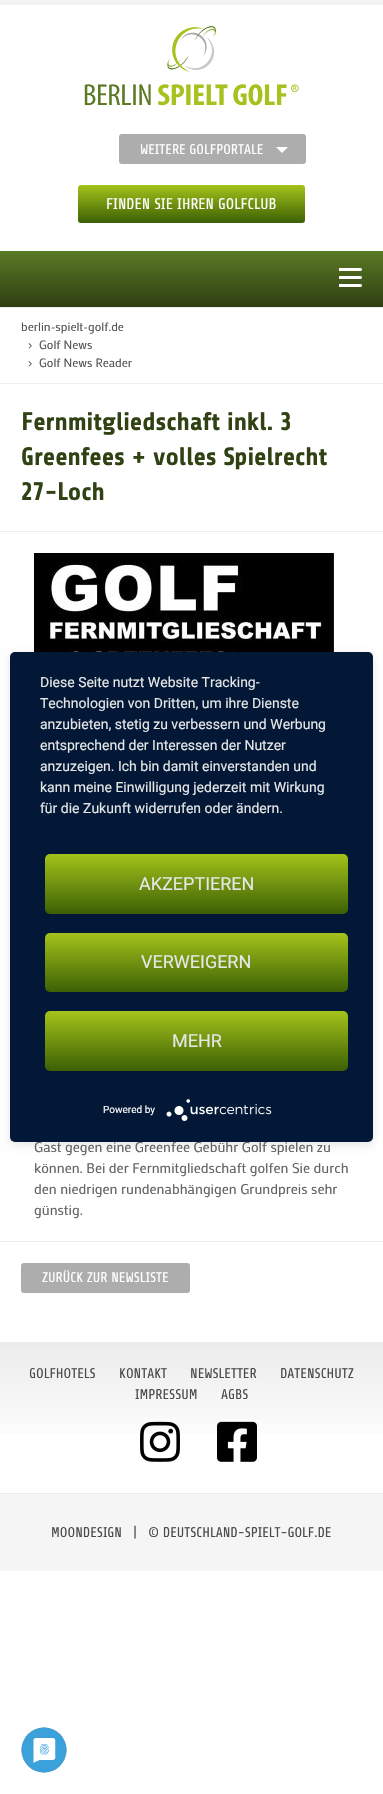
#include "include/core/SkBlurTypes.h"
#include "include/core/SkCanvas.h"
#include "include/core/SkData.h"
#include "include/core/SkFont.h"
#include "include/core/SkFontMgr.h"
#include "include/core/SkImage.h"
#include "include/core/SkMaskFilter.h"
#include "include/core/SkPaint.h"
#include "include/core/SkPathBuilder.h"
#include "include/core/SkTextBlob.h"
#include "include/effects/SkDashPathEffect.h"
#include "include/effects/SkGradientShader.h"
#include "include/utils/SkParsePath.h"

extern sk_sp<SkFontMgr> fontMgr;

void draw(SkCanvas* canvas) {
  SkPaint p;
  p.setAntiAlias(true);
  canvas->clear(SK_ColorWHITE);
  p.setColor(SkColorSetRGB(243, 243, 243));
  canvas->drawRect(SkRect::MakeLTRB(0, 0, 383, 5), p);
  canvas->drawImageRect(SkImages::DeferredFromEncodedData(SkData::MakeFromFileName("images/1.png")), SkRect::MakeLTRB(84, 26, 299, 106), SkSamplingOptions());
  p.setColor(SkColorSetRGB(173, 173, 173));
  canvas->drawRoundRect(SkRect::MakeLTRB(119, 134, 306, 164), 3, 3, p);
  p.setColor(SK_ColorWHITE);
  canvas->drawPath(SkPathBuilder().moveTo(276, 147).lineTo(288, 147).lineTo(282, 153).close().detach(), p);
  {
    const SkColor colors[] = {SkColorSetRGB(164, 195, 27), SkColorSetRGB(60, 96, 4)};
    const float stops[] = {0, 1};
    const SkPoint ends[] = {{192, 185}, {192, 223}};
    p.setShader(SkGradientShader::MakeLinear(ends, colors, stops, 2, SkTileMode::kClamp));
    p.setAlpha(255);
  }
  canvas->drawRoundRect(SkRect::MakeLTRB(78, 185, 305, 223), 3, 3, p);
  {
    const SkColor colors[] = {SkColorSetRGB(91, 123, 37), SkColorSetRGB(46, 62, 18)};
    const float stops[] = {0, 1};
    const SkPoint ends[] = {{192, 251}, {192, 307}};
    p.setShader(SkGradientShader::MakeLinear(ends, colors, stops, 2, SkTileMode::kClamp));
    p.setAlpha(255);
  }
  canvas->drawRect(SkRect::MakeLTRB(0, 251, 383, 307), p);
  canvas->drawImageRect(SkImages::DeferredFromEncodedData(SkData::MakeFromFileName("images/2.png")), SkRect::MakeLTRB(339, 268, 362, 287), SkSamplingOptions());
  p.setShader(nullptr);
  p.setColor(SkColorSetRGB(236, 236, 236));
  canvas->drawRect(SkRect::MakeLTRB(0, 307, 383, 308), p);
  canvas->drawRect(SkRect::MakeLTRB(0, 383, 383, 384), p);
  canvas->drawRect(SkRect::MakeLTRB(0, 531, 383, 532), p);
  canvas->drawImageRect(SkImages::DeferredFromEncodedData(SkData::MakeFromFileName("images/3.png")), SkRect::MakeLTRB(34, 553, 334, 652), SkSamplingOptions());
  canvas->drawRect(SkRect::MakeLTRB(0, 1241, 383, 1242), p);
  p.setColor(SkColorSetRGB(173, 173, 173));
  canvas->drawRoundRect(SkRect::MakeLTRB(21, 1263, 190, 1293), 3, 3, p);
  {
    const SkColor colors[] = {SkColorSetRGB(235, 235, 235), SK_ColorWHITE};
    const float stops[] = {0, 0.7f};
    const SkPoint ends[] = {{192, 1342}, {192, 1493}};
    p.setShader(SkGradientShader::MakeLinear(ends, colors, stops, 2, SkTileMode::kClamp));
    p.setAlpha(255);
  }
  canvas->drawRect(SkRect::MakeLTRB(0, 1342, 383, 1434), p);
  canvas->drawImageRect(SkImages::DeferredFromEncodedData(SkData::MakeFromFileName("images/4.png")), SkRect::MakeLTRB(140, 1421, 180, 1462), SkSamplingOptions());
  canvas->drawImageRect(SkImages::DeferredFromEncodedData(SkData::MakeFromFileName("images/5.png")), SkRect::MakeLTRB(217, 1421, 257, 1462), SkSamplingOptions());
  p.setShader(nullptr);
  p.setColor(SkColorSetRGB(245, 245, 245));
  canvas->drawRect(SkRect::MakeLTRB(0, 1494, 383, 1571), p);
  p.setColor(SkColorSetRGB(236, 236, 236));
  canvas->drawRect(SkRect::MakeLTRB(0, 1493, 383, 1494), p);
  p.setColor(SkColorSetARGB(26, 0, 0, 0));
  p.setMaskFilter(SkMaskFilter::MakeBlur(kNormal_SkBlurStyle, 5));
  canvas->drawRoundRect(SkRect::MakeLTRB(10, 655, 373, 1145), 5, 5, p);
  p.setMaskFilter(nullptr);
  p.setColor(SkColorSetRGB(2, 24, 54));
  canvas->drawRoundRect(SkRect::MakeLTRB(10, 652, 373, 1142), 5, 5, p);
  {
    const SkColor colors[] = {SkColorSetRGB(164, 195, 27), SkColorSetRGB(60, 96, 4)};
    const float stops[] = {0, 1};
    const SkPoint ends[] = {{197, 854}, {197, 914}};
    p.setShader(SkGradientShader::MakeLinear(ends, colors, stops, 2, SkTileMode::kClamp));
    p.setAlpha(255);
  }
  canvas->drawRoundRect(SkRect::MakeLTRB(45, 854, 348, 914), 5, 5, p);
  {
    const SkColor colors[] = {SkColorSetRGB(164, 195, 27), SkColorSetRGB(60, 96, 4)};
    const float stops[] = {0, 1};
    const SkPoint ends[] = {{197, 933}, {197, 992}};
    p.setShader(SkGradientShader::MakeLinear(ends, colors, stops, 2, SkTileMode::kClamp));
    p.setAlpha(255);
  }
  canvas->drawRoundRect(SkRect::MakeLTRB(45, 933, 348, 992), 5, 5, p);
  {
    const SkColor colors[] = {SkColorSetRGB(164, 195, 27), SkColorSetRGB(60, 96, 4)};
    const float stops[] = {0, 1};
    const SkPoint ends[] = {{197, 1011}, {197, 1071}};
    p.setShader(SkGradientShader::MakeLinear(ends, colors, stops, 2, SkTileMode::kClamp));
    p.setAlpha(255);
  }
  canvas->drawRoundRect(SkRect::MakeLTRB(45, 1011, 348, 1071), 5, 5, p);
  canvas->drawImageRect(SkImages::DeferredFromEncodedData(SkData::MakeFromFileName("images/6.png")), SkRect::MakeLTRB(166, 1099, 272, 1121), SkSamplingOptions());
  canvas->drawImageRect(SkImages::DeferredFromEncodedData(SkData::MakeFromFileName("images/7.png")), SkRect::MakeLTRB(21, 1727, 67, 1773), SkSamplingOptions());
  SkFont font1(fontMgr->matchFamilyStyle("Share", SkFontStyle::Normal()), 14);
  font1.setSubpixel(true);
  p.setShader(nullptr);
  p.setColor(SK_ColorWHITE);
  canvas->drawString("WEITERE GOLFPORTALE", 140, 154, font1, p);
  SkFont font2(fontMgr->matchFamilyStyle("Share", SkFontStyle::Normal()), 15.4f);
  font2.setSubpixel(true);
  canvas->drawString("FINDEN SIE IHREN GOLFCLUB", 106, 209, font2, p);
  SkFont font3(fontMgr->matchFamilyStyle("Mako", SkFontStyle::Normal()), 12);
  font3.setSubpixel(true);
  p.setColor(SkColorSetRGB(85, 85, 85));
  canvas->drawString("berlin-spielt-golf.de", 21, 331, font3, p);
  canvas->drawString("›", 28, 349, font3, p);
  canvas->drawString("Golf News", 39, 349, font3, p);
  canvas->drawString("›", 28, 367, font3, p);
  canvas->drawString("Golf News Reader", 39, 367, font3, p);
  SkFont font4(fontMgr->matchFamilyStyle("Share", SkFontStyle::Bold()), 25.25f);
  font4.setSubpixel(true);
  p.setColor(SkColorSetRGB(48, 65, 19));
  canvas->drawString("Fernmitgliedschaft inkl. 3", 21, 430, font4, p);
  canvas->drawString("Greenfees + volles Spielrecht", 21, 465, font4, p);
  canvas->drawString("27-Loch", 21, 500, font4, p);
  SkFont font5(fontMgr->matchFamilyStyle("Mako", SkFontStyle::Normal()), 14);
  font5.setSubpixel(true);
  p.setColor(SkColorSetRGB(99, 99, 99));
  canvas->drawString("Gast gegen eine Greenfee Gebühr Golf spielen zu", 34, 1152, font5, p);
  canvas->drawString("können. Bei der Fernmitgliedschaft golfen Sie durch", 34, 1173, font5, p);
  canvas->drawString("den niedrigen rundenabhängigen Grundpreis sehr", 34, 1194, font5, p);
  canvas->drawString("günstig.", 34, 1215, font5, p);
  p.setColor(SK_ColorWHITE);
  canvas->drawString("ZURÜCK ZUR NEWSLISTE", 42, 1282, font1, p);
  p.setColor(SkColorSetRGB(74, 74, 74));
  canvas->drawString("GOLFHOTELS", 29, 1378, font1, p);
  canvas->drawString("KONTAKT", 119, 1378, font1, p);
  canvas->drawString("NEWSLETTER", 190, 1378, font1, p);
  canvas->drawString("DATENSCHUTZ", 280, 1378, font1, p);
  canvas->drawString("IMPRESSUM", 135, 1399, font1, p);
  canvas->drawString("AGBS", 221, 1399, font1, p);
  canvas->drawString("MOONDESIGN", 51, 1537, font1, p);
  canvas->drawString("|   © DEUTSCHLAND-SPIELT-GOLF.DE", 133, 1537, font1, p);
  SkFont font6(fontMgr->matchFamilyStyle("Roboto", SkFontStyle::Normal()), 14);
  font6.setSubpixel(true);
  p.setColor(SkColorSetRGB(230, 230, 230));
  canvas->drawString("Diese Seite nutzt Website Tracking-", 40, 687, font6, p);
  canvas->drawString("Technologien von Dritten, um ihre Dienste", 40, 708, font6, p);
  canvas->drawString("anzubieten, stetig zu verbessern und Werbung", 40, 729, font6, p);
  canvas->drawString("entsprechend der Interessen der Nutzer", 40, 750, font6, p);
  canvas->drawString("anzuzeigen. Ich bin damit einverstanden und", 40, 771, font6, p);
  canvas->drawString("kann meine Einwilligung jederzeit mit Wirkung", 40, 792, font6, p);
  canvas->drawString("für die Zukunft widerrufen oder ändern.", 40, 813, font6, p);
  SkFont font7(fontMgr->matchFamilyStyle("Roboto", SkFontStyle::Normal()), 18);
  font7.setSubpixel(true);
  canvas->drawString("AKZEPTIEREN", 139, 890, font7, p);
  canvas->drawString("VERWEIGERN", 141, 968, font7, p);
  canvas->drawString("MEHR", 172, 1047, font7, p);
  SkFont font8(fontMgr->matchFamilyStyle("Roboto", SkFontStyle::Normal()), 10);
  font8.setSubpixel(true);
  p.setColor(SK_ColorWHITE);
  canvas->drawString("Powered by", 103, 1113, font8, p);
}
